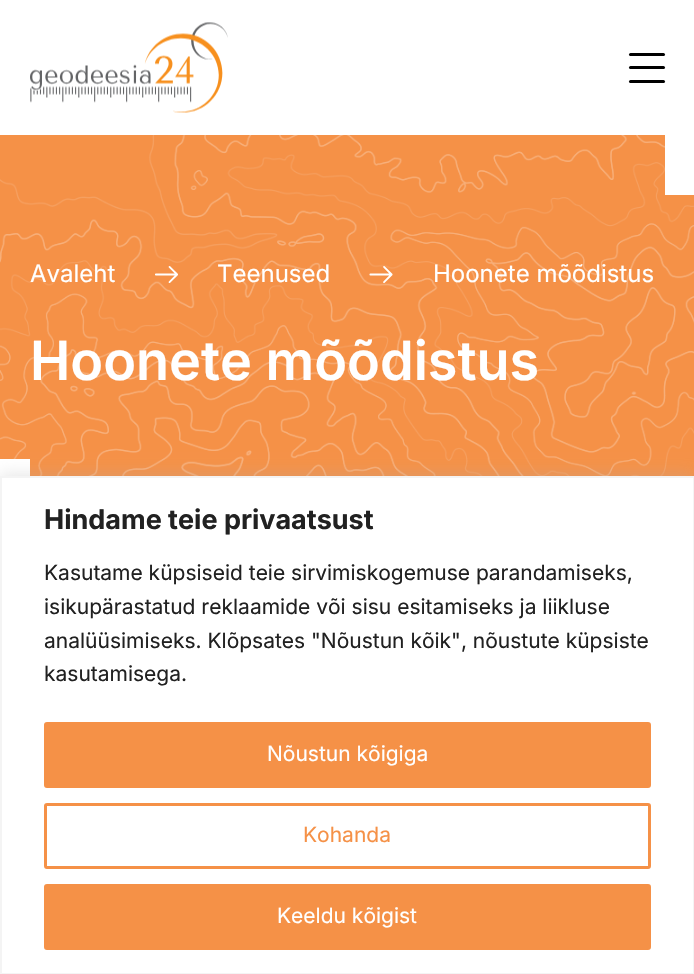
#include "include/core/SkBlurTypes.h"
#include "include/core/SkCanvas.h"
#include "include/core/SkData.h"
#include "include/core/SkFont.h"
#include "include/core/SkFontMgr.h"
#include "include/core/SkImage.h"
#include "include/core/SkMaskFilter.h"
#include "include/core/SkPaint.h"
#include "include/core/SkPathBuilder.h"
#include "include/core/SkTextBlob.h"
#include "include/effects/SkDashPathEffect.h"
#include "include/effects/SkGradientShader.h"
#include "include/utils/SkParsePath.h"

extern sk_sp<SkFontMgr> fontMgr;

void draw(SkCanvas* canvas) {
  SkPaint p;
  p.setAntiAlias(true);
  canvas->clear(SK_ColorWHITE);
  canvas->drawImageRect(SkImages::DeferredFromEncodedData(SkData::MakeFromFileName("images/1.png")), SkRect::MakeLTRB(30, 22, 228, 113), SkSamplingOptions());
  p.setColor(SK_ColorBLACK);
  canvas->drawRoundRect(SkRect::MakeLTRB(629, 53, 665, 56), 1.5f, 1.5f, p);
  canvas->drawRoundRect(SkRect::MakeLTRB(629, 66, 665, 69), 1.5f, 1.5f, p);
  canvas->drawRoundRect(SkRect::MakeLTRB(629, 80, 665, 83), 1.5f, 1.5f, p);
  p.setColor(SkColorSetRGB(245, 145, 71));
  canvas->drawRect(SkRect::MakeLTRB(0, 135, 694, 476), p);
  canvas->drawImageRect(SkImages::DeferredFromEncodedData(SkData::MakeFromFileName("images/2.png")), SkRect::MakeLTRB(0, 135, 694, 476), SkSamplingOptions());
  p.setColor(SK_ColorWHITE);
  canvas->drawRect(SkRect::MakeLTRB(665, 135, 694, 195), p);
  canvas->drawRect(SkRect::MakeLTRB(0, 459, 30, 476), p);
  canvas->drawImageRect(SkImages::DeferredFromEncodedData(SkData::MakeFromFileName("images/3.png")), SkRect::MakeLTRB(155, 266, 178, 283), SkSamplingOptions());
  canvas->drawImageRect(SkImages::DeferredFromEncodedData(SkData::MakeFromFileName("images/4.png")), SkRect::MakeLTRB(369, 266, 393, 283), SkSamplingOptions());
  p.setColor(SkColorSetARGB(77, 172, 171, 171));
  p.setMaskFilter(SkMaskFilter::MakeBlur(kNormal_SkBlurStyle, 7.5f));
  canvas->drawRect(SkRect::MakeLTRB(0, 474, 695, 974), p);
  p.setMaskFilter(nullptr);
  p.setColor(SK_ColorWHITE);
  canvas->drawRect(SkRect::MakeLTRB(1, 477, 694, 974), p);
  p.setStyle(SkPaint::kStroke_Style);
  p.setStrokeWidth(2);
  p.setColor(SkColorSetRGB(244, 244, 244));
  canvas->drawRect(SkRect::MakeLTRB(1, 477, 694, 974), p);
  p.setStyle(SkPaint::kFill_Style);
  p.setColor(SkColorSetRGB(245, 145, 71));
  canvas->drawRoundRect(SkRect::MakeLTRB(45.5f, 723.5f, 649.5f, 786.5f), 1.5f, 1.5f, p);
  p.setStyle(SkPaint::kStroke_Style);
  p.setStrokeWidth(3);
  canvas->drawRoundRect(SkRect::MakeLTRB(45.5f, 723.5f, 649.5f, 786.5f), 1.5f, 1.5f, p);
  canvas->drawRoundRect(SkRect::MakeLTRB(45.5f, 804.5f, 649.5f, 867.5f), 1.5f, 1.5f, p);
  p.setStyle(SkPaint::kFill_Style);
  canvas->drawRoundRect(SkRect::MakeLTRB(45.5f, 885.5f, 649.5f, 948.5f), 1.5f, 1.5f, p);
  p.setStyle(SkPaint::kStroke_Style);
  canvas->drawRoundRect(SkRect::MakeLTRB(45.5f, 885.5f, 649.5f, 948.5f), 1.5f, 1.5f, p);
  SkFont font1(fontMgr->matchFamilyStyle("Inter", SkFontStyle::Normal()), 24);
  font1.setSubpixel(true);
  p.setStyle(SkPaint::kFill_Style);
  p.setColor(SK_ColorWHITE);
  canvas->drawString("Avaleht", 30, 282, font1, p);
  canvas->drawString("Teenused", 217, 282, font1, p);
  canvas->drawString("Hoonete mõõdistus", 433, 282, font1, p);
  SkFont font2(fontMgr->matchFamilyStyle("Inter", SkFontStyle(600, SkFontStyle::kNormal_Width, SkFontStyle::kUpright_Slant)), 54);
  font2.setSubpixel(true);
  canvas->drawString("Hoonete mõõdistus", 30, 380, font2, p);
  SkFont font3(fontMgr->matchFamilyStyle("Inter", SkFontStyle::Bold()), 27);
  font3.setSubpixel(true);
  p.setColor(SkColorSetRGB(33, 33, 33));
  canvas->drawString("Hindame teie privaatsust", 44, 529, font3, p);
  SkFont font4(fontMgr->matchFamilyStyle("Inter", SkFontStyle::Normal()), 21);
  font4.setSubpixel(true);
  canvas->drawString("Kasutame küpsiseid teie sirvimiskogemuse parandamiseks,", 44, 580, font4, p);
  canvas->drawString("isikupärastatud reklaamide või sisu esitamiseks ja liikluse", 44, 614, font4, p);
  canvas->drawString("analüüsimiseks. Klõpsates \"Nõustun kõik\", nõustute küpsiste", 44, 648, font4, p);
  canvas->drawString("kasutamisega.", 44, 681, font4, p);
  p.setColor(SK_ColorWHITE);
  canvas->drawString("Nõustun kõigiga", 267, 761, font4, p);
  p.setColor(SkColorSetRGB(245, 145, 71));
  canvas->drawString("Kohanda", 303, 842, font4, p);
  p.setColor(SK_ColorWHITE);
  canvas->drawString("Keeldu kõigist", 277, 923, font4, p);
}
